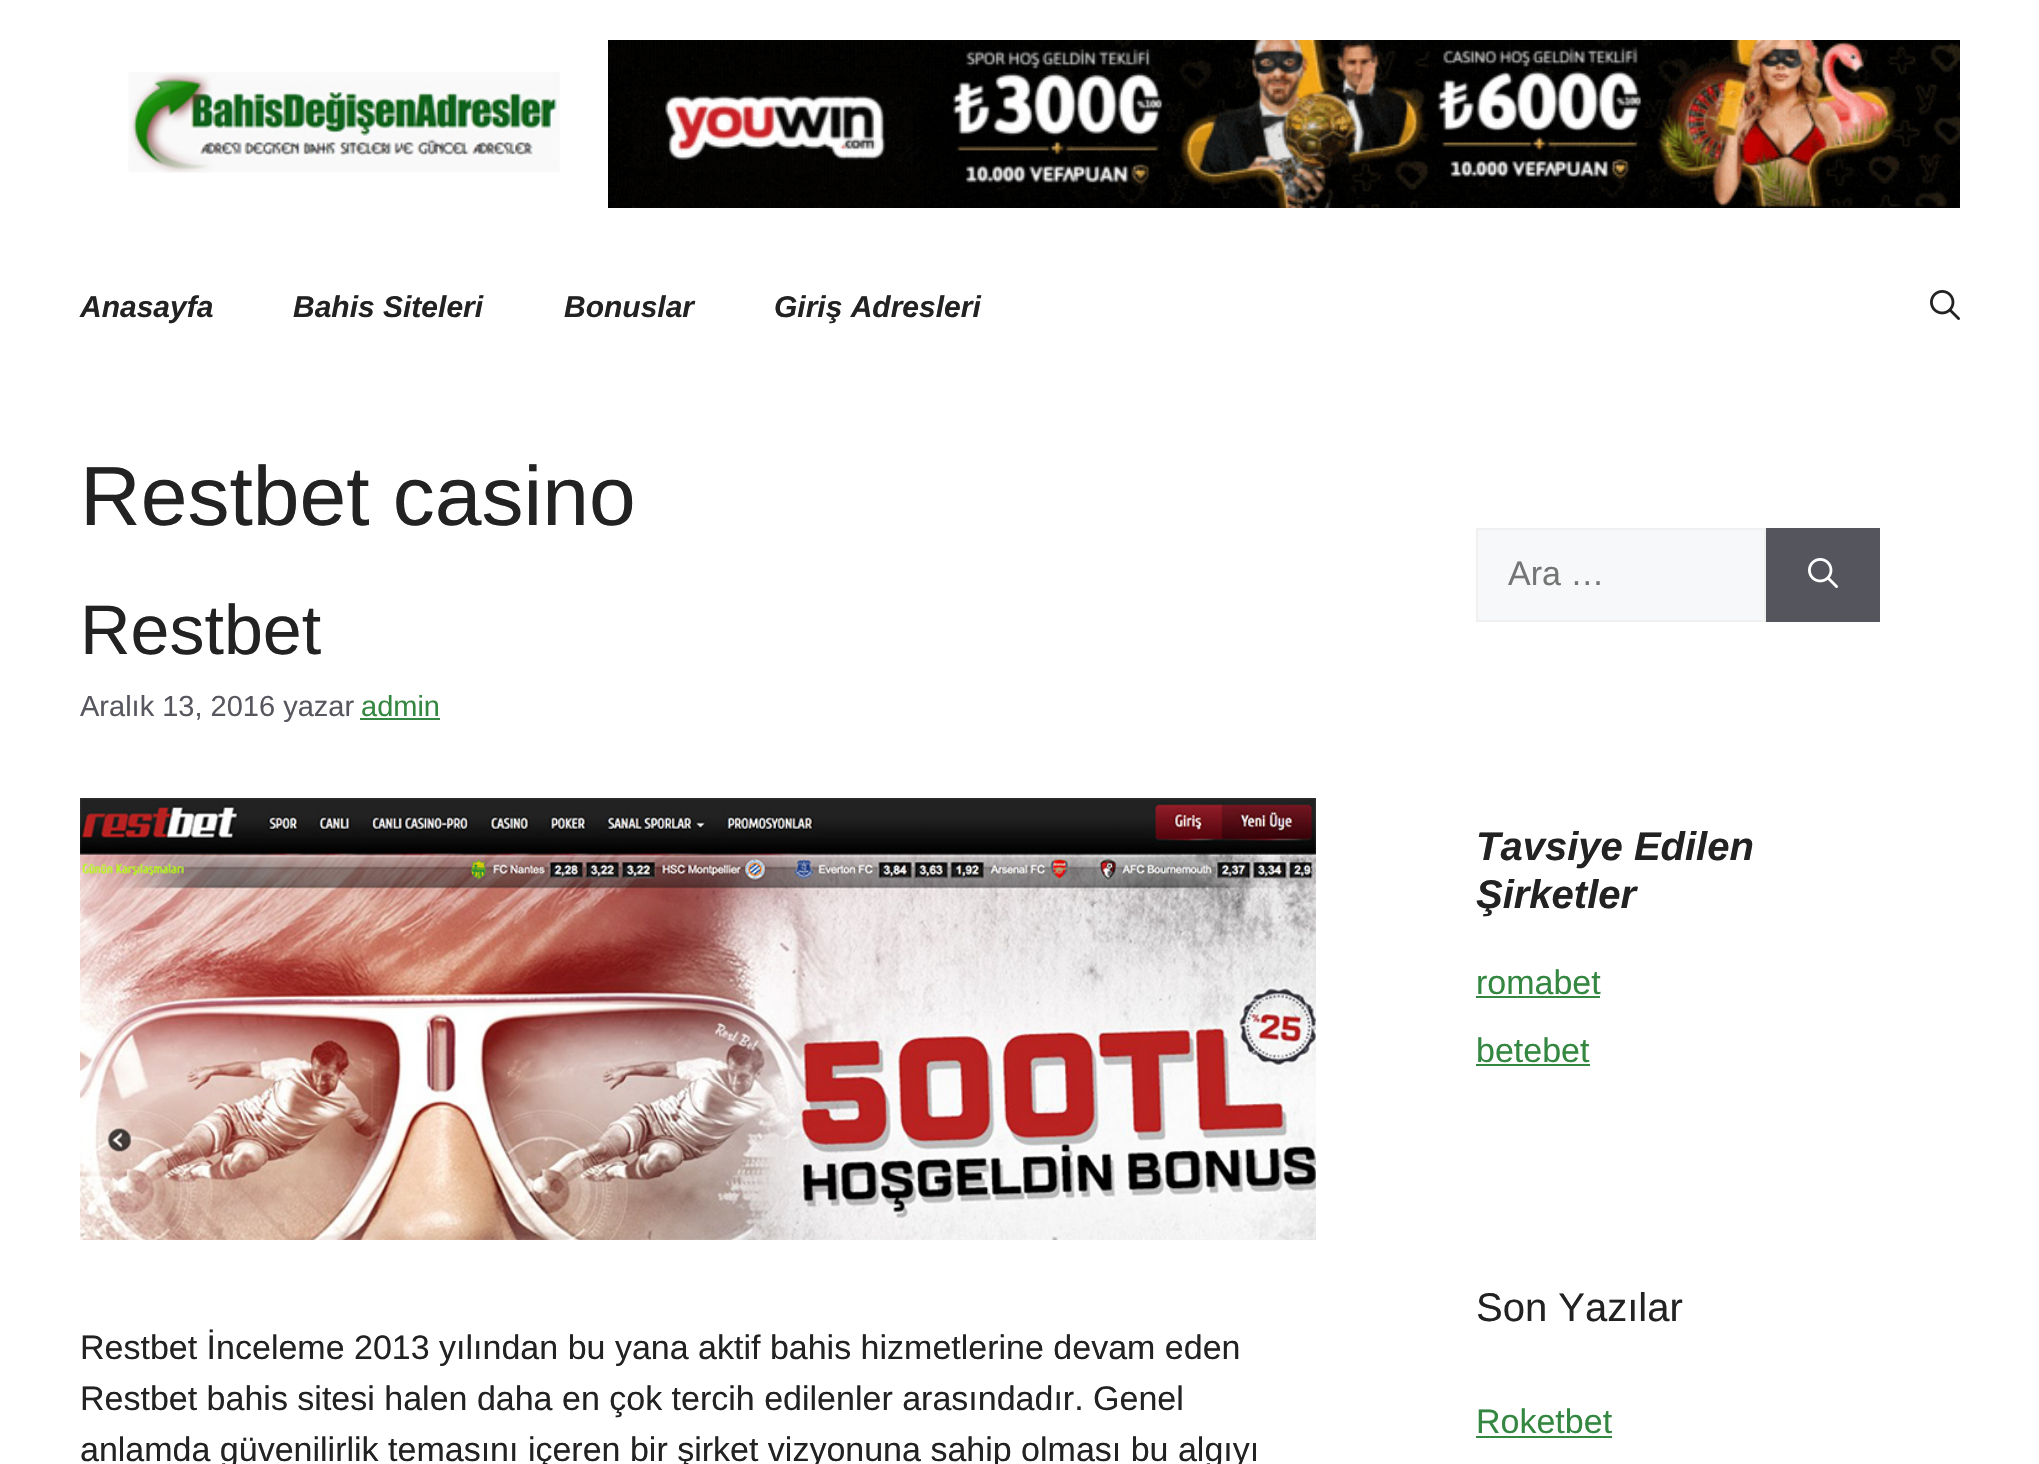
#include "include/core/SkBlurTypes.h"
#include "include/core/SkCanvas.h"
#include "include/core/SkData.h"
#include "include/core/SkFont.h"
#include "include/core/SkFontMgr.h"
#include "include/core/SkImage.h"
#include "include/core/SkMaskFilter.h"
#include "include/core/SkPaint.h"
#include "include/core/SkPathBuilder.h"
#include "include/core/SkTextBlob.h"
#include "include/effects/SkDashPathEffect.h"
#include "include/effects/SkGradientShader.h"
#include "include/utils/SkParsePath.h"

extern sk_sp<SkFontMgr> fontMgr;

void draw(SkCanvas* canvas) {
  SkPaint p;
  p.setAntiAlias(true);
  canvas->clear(SK_ColorWHITE);
  canvas->drawImageRect(SkImages::DeferredFromEncodedData(SkData::MakeFromFileName("images/1.png")), SkRect::MakeLTRB(128, 72, 560, 173), SkSamplingOptions());
  canvas->drawImageRect(SkImages::DeferredFromEncodedData(SkData::MakeFromFileName("images/2.png")), SkRect::MakeLTRB(608, 40, 1960, 208), SkSamplingOptions());
  canvas->drawImageRect(SkImages::DeferredFromEncodedData(SkData::MakeFromFileName("images/3.png")), SkRect::MakeLTRB(1930, 290, 1960, 320), SkSamplingOptions());
  p.setColor(SkColorSetRGB(52, 135, 65));
  canvas->drawRect(SkRect::MakeLTRB(360, 718, 440, 720), p);
  canvas->drawImageRect(SkImages::DeferredFromEncodedData(SkData::MakeFromFileName("images/4.png")), SkRect::MakeLTRB(80, 798, 1316, 1240), SkSamplingOptions());
  p.setColor(SkColorSetRGB(247, 248, 249));
  canvas->drawRect(SkRect::MakeLTRB(1477, 529, 1765, 621), p);
  p.setStyle(SkPaint::kStroke_Style);
  p.setStrokeWidth(2);
  p.setColor(SkColorSetRGB(240, 240, 240));
  canvas->drawRect(SkRect::MakeLTRB(1477, 529, 1765, 621), p);
  p.setStyle(SkPaint::kFill_Style);
  p.setColor(SkColorSetRGB(85, 85, 94));
  canvas->drawRect(SkRect::MakeLTRB(1766, 528, 1880, 622), p);
  canvas->drawImageRect(SkImages::DeferredFromEncodedData(SkData::MakeFromFileName("images/5.png")), SkRect::MakeLTRB(1808, 558, 1838, 588), SkSamplingOptions());
  p.setColor(SkColorSetRGB(52, 135, 65));
  canvas->drawRect(SkRect::MakeLTRB(1476, 996, 1600, 998), p);
  canvas->drawRect(SkRect::MakeLTRB(1476, 1064, 1590, 1066), p);
  canvas->drawRect(SkRect::MakeLTRB(1476, 1436, 1612, 1438), p);
  SkFont font1(fontMgr->matchFamilyStyle("Liberation Sans", SkFontStyle::BoldItalic()), 30);
  font1.setSubpixel(true);
  p.setColor(SkColorSetRGB(34, 34, 34));
  canvas->drawString("Anasayfa", 80, 317, font1, p);
  canvas->drawString("Bahis Siteleri", 293, 317, font1, p);
  canvas->drawString("Bonuslar", 564, 317, font1, p);
  canvas->drawString("Giriş Adresleri", 774, 317, font1, p);
  SkFont font2(fontMgr->matchFamilyStyle("Liberation Sans", SkFontStyle::Normal()), 84);
  font2.setSubpixel(true);
  canvas->drawString("Restbet casino", 80, 525, font2, p);
  SkFont font3(fontMgr->matchFamilyStyle("Liberation Sans", SkFontStyle::Normal()), 70);
  font3.setSubpixel(true);
  canvas->drawString("Restbet", 80, 654, font3, p);
  SkFont font4(fontMgr->matchFamilyStyle("Liberation Sans", SkFontStyle::Normal()), 29);
  font4.setSubpixel(true);
  p.setColor(SkColorSetRGB(87, 87, 96));
  canvas->drawString("Aralık 13, 2016 yazar", 80, 716, font4, p);
  p.setColor(SkColorSetRGB(52, 135, 65));
  canvas->drawString("admin", 361, 716, font4, p);
  SkFont font5(fontMgr->matchFamilyStyle("Liberation Sans", SkFontStyle::Normal()), 34);
  font5.setSubpixel(true);
  p.setColor(SkColorSetRGB(34, 34, 34));
  canvas->drawString("Restbet İnceleme 2013 yılından bu yana aktif bahis hizmetlerine devam eden", 80, 1359, font5, p);
  canvas->drawString("Restbet bahis sitesi halen daha en çok tercih edilenler arasındadır. Genel", 80, 1410, font5, p);
  canvas->drawString("anlamda güvenilirlik temasını içeren bir şirket vizyonuna sahip olması bu algıyı", 80, 1461, font5, p);
  p.setColor(SkColorSetRGB(117, 117, 117));
  canvas->drawString("Ara …", 1508, 585, font5, p);
  SkFont font6(fontMgr->matchFamilyStyle("Liberation Sans", SkFontStyle::BoldItalic()), 40);
  font6.setSubpixel(true);
  p.setColor(SkColorSetRGB(34, 34, 34));
  canvas->drawString("Tavsiye Edilen", 1476, 860, font6, p);
  canvas->drawString("Şirketler", 1476, 908, font6, p);
  p.setColor(SkColorSetRGB(52, 135, 65));
  canvas->drawString("romabet", 1476, 994, font5, p);
  canvas->drawString("betebet", 1476, 1062, font5, p);
  SkFont font7(fontMgr->matchFamilyStyle("Liberation Sans", SkFontStyle::Normal()), 40);
  font7.setSubpixel(true);
  p.setColor(SkColorSetRGB(34, 34, 34));
  canvas->drawString("Son Yazılar", 1476, 1321, font7, p);
  p.setColor(SkColorSetRGB(52, 135, 65));
  canvas->drawString("Roketbet", 1476, 1433, font5, p);
}
